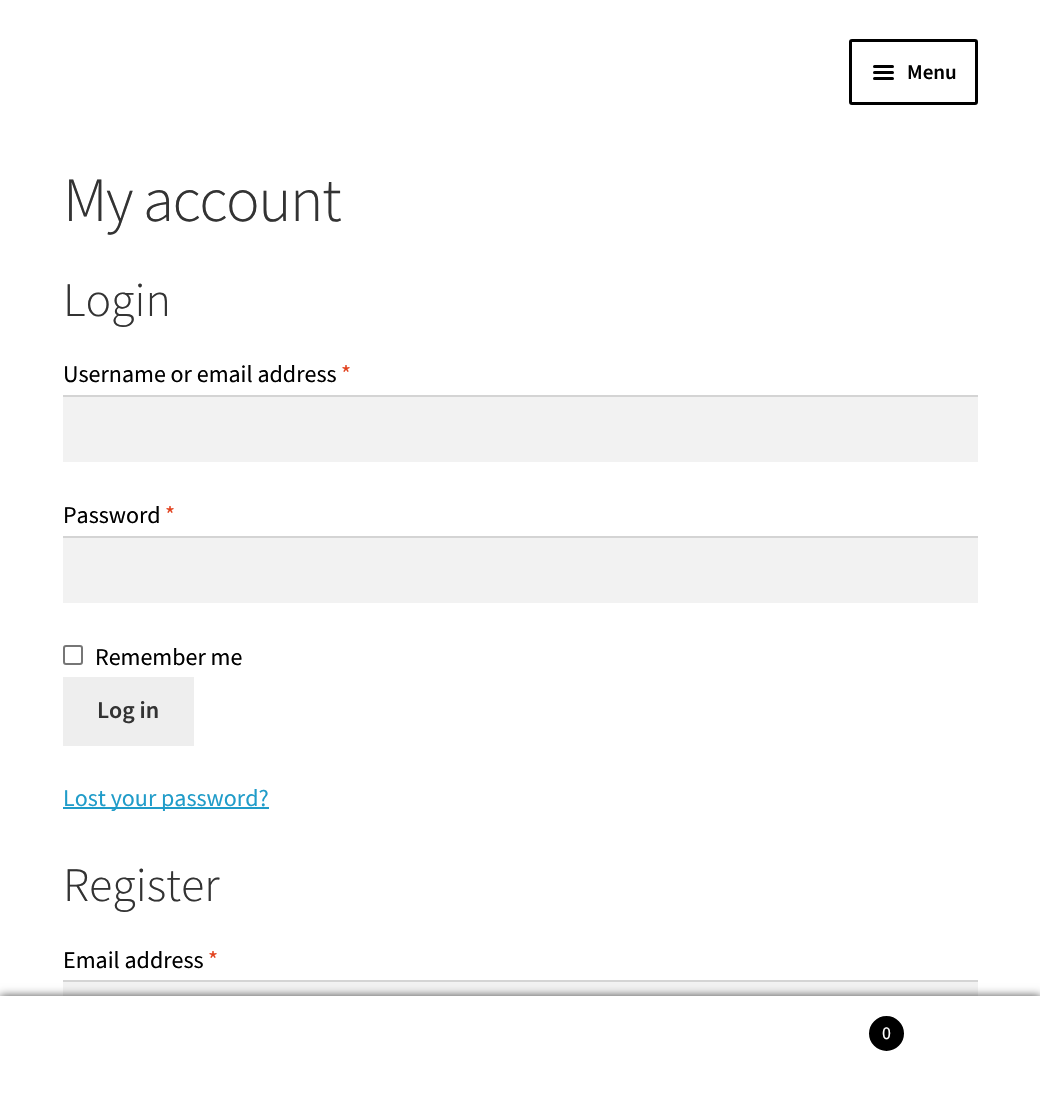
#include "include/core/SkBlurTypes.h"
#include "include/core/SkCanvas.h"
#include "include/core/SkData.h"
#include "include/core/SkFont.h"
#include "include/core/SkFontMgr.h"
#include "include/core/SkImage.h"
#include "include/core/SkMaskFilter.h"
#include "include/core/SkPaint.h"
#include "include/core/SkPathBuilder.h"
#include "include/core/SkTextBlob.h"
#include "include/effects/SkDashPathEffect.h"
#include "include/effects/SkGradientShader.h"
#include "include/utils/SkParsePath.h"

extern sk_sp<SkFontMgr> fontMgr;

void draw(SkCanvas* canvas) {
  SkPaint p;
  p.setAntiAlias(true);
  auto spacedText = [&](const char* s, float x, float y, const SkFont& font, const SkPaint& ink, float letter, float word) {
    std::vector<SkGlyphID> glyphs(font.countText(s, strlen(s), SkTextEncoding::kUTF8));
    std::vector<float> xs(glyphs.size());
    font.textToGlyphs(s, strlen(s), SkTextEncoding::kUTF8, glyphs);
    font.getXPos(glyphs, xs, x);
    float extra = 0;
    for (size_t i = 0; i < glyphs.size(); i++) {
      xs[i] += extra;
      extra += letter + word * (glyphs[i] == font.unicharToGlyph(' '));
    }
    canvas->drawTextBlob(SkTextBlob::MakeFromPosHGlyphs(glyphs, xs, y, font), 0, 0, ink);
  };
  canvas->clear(SK_ColorWHITE);
  p.setStyle(SkPaint::kStroke_Style);
  p.setStrokeWidth(3);
  p.setColor(SK_ColorBLACK);
  canvas->drawRoundRect(SkRect::MakeLTRB(850.5f, 40.5f, 976.5f, 103.5f), 1.5f, 1.5f, p);
  p.setStyle(SkPaint::kFill_Style);
  canvas->drawRoundRect(SkRect::MakeLTRB(873, 65, 894, 68), 1.5f, 1.5f, p);
  canvas->drawRoundRect(SkRect::MakeLTRB(873, 71, 894, 74), 1.5f, 1.5f, p);
  canvas->drawRoundRect(SkRect::MakeLTRB(873, 77, 894, 80), 1.5f, 1.5f, p);
  p.setColor(SkColorSetRGB(242, 242, 242));
  canvas->drawRect(SkRect::MakeLTRB(63, 397, 978, 462), p);
  p.setColor(SkColorSetRGB(212, 212, 212));
  canvas->drawRect(SkRect::MakeLTRB(63, 395, 978, 397), p);
  p.setColor(SkColorSetRGB(242, 242, 242));
  canvas->drawRect(SkRect::MakeLTRB(63, 538, 978, 603), p);
  p.setColor(SkColorSetRGB(212, 212, 212));
  canvas->drawRect(SkRect::MakeLTRB(63, 536, 978, 538), p);
  p.setStyle(SkPaint::kStroke_Style);
  p.setStrokeWidth(2);
  p.setColor(SkColorSetRGB(118, 118, 118));
  canvas->drawRoundRect(SkRect::MakeLTRB(64, 646, 82, 664), 2, 2, p);
  p.setStyle(SkPaint::kFill_Style);
  p.setColor(SkColorSetRGB(238, 238, 238));
  canvas->drawRect(SkRect::MakeLTRB(63, 677, 194, 746), p);
  p.setColor(SkColorSetRGB(32, 156, 201));
  canvas->drawRect(SkRect::MakeLTRB(63, 807, 269, 809), p);
  p.setColor(SkColorSetRGB(242, 242, 242));
  canvas->drawRect(SkRect::MakeLTRB(63, 982, 978, 996), p);
  p.setColor(SkColorSetRGB(212, 212, 212));
  canvas->drawRect(SkRect::MakeLTRB(63, 980, 978, 982), p);
  p.setColor(SkColorSetARGB(179, 0, 0, 0));
  p.setMaskFilter(SkMaskFilter::MakeBlur(kNormal_SkBlurStyle, 4.5f));
  canvas->drawRect(SkRect::MakeLTRB(0, 996, 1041, 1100), p);
  p.setMaskFilter(nullptr);
  p.setColor(SK_ColorWHITE);
  canvas->drawRect(SkRect::MakeLTRB(0, 996, 1040, 998), p);
  canvas->drawRect(SkRect::MakeLTRB(0, 998, 1040, 1099), p);
  p.setColor(SK_ColorBLACK);
  canvas->drawCircle(886.5f, 1033.5f, 18.5f, p);
  p.setStyle(SkPaint::kStroke_Style);
  p.setColor(SK_ColorWHITE);
  canvas->drawCircle(886.5f, 1033.5f, 18.5f, p);
  SkFont font1(fontMgr->matchFamilyStyle("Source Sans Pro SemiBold", SkFontStyle(600, SkFontStyle::kNormal_Width, SkFontStyle::kUpright_Slant)), 21);
  font1.setSubpixel(true);
  p.setStyle(SkPaint::kFill_Style);
  p.setColor(SK_ColorBLACK);
  canvas->drawString("Menu", 907, 79, font1, p);
  SkFont font2(fontMgr->matchFamilyStyle("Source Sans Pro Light", SkFontStyle(300, SkFontStyle::kNormal_Width, SkFontStyle::kUpright_Slant)), 63);
  font2.setSubpixel(true);
  p.setColor(SkColorSetRGB(51, 51, 51));
  spacedText("My account", 63, 221, font2, p, -1.5f, 0);
  SkFont font3(fontMgr->matchFamilyStyle("Source Sans Pro Light", SkFontStyle(300, SkFontStyle::kNormal_Width, SkFontStyle::kUpright_Slant)), 48);
  font3.setSubpixel(true);
  canvas->drawString("Login", 63, 316, font3, p);
  SkFont font4(fontMgr->matchFamilyStyle("Source Sans Pro", SkFontStyle::Normal()), 24);
  font4.setSubpixel(true);
  p.setColor(SK_ColorBLACK);
  canvas->drawString("Username or email address", 63, 382, font4, p);
  p.setColor(SkColorSetRGB(226, 64, 28));
  canvas->drawString("*", 341, 382, font4, p);
  p.setColor(SK_ColorBLACK);
  canvas->drawString("Password", 63, 523, font4, p);
  p.setColor(SkColorSetRGB(226, 64, 28));
  canvas->drawString("*", 165, 523, font4, p);
  p.setColor(SK_ColorBLACK);
  canvas->drawString("Remember me", 95, 665, font4, p);
  SkFont font5(fontMgr->matchFamilyStyle("Source Sans Pro SemiBold", SkFontStyle(600, SkFontStyle::kNormal_Width, SkFontStyle::kUpright_Slant)), 24);
  font5.setSubpixel(true);
  p.setColor(SkColorSetRGB(51, 51, 51));
  canvas->drawString("Log in", 97, 718, font5, p);
  p.setColor(SkColorSetRGB(32, 156, 201));
  canvas->drawString("Lost your password?", 63, 806, font4, p);
  p.setColor(SkColorSetRGB(51, 51, 51));
  canvas->drawString("Register", 63, 901, font3, p);
  p.setColor(SK_ColorBLACK);
  canvas->drawString("Email address", 63, 968, font4, p);
  p.setColor(SkColorSetRGB(226, 64, 28));
  canvas->drawString("*", 208, 968, font4, p);
  SkFont font6(fontMgr->matchFamilyStyle("Source Sans Pro", SkFontStyle::Normal()), 18);
  font6.setSubpixel(true);
  p.setColor(SK_ColorWHITE);
  canvas->drawString("0", 882, 1039, font6, p);
}
